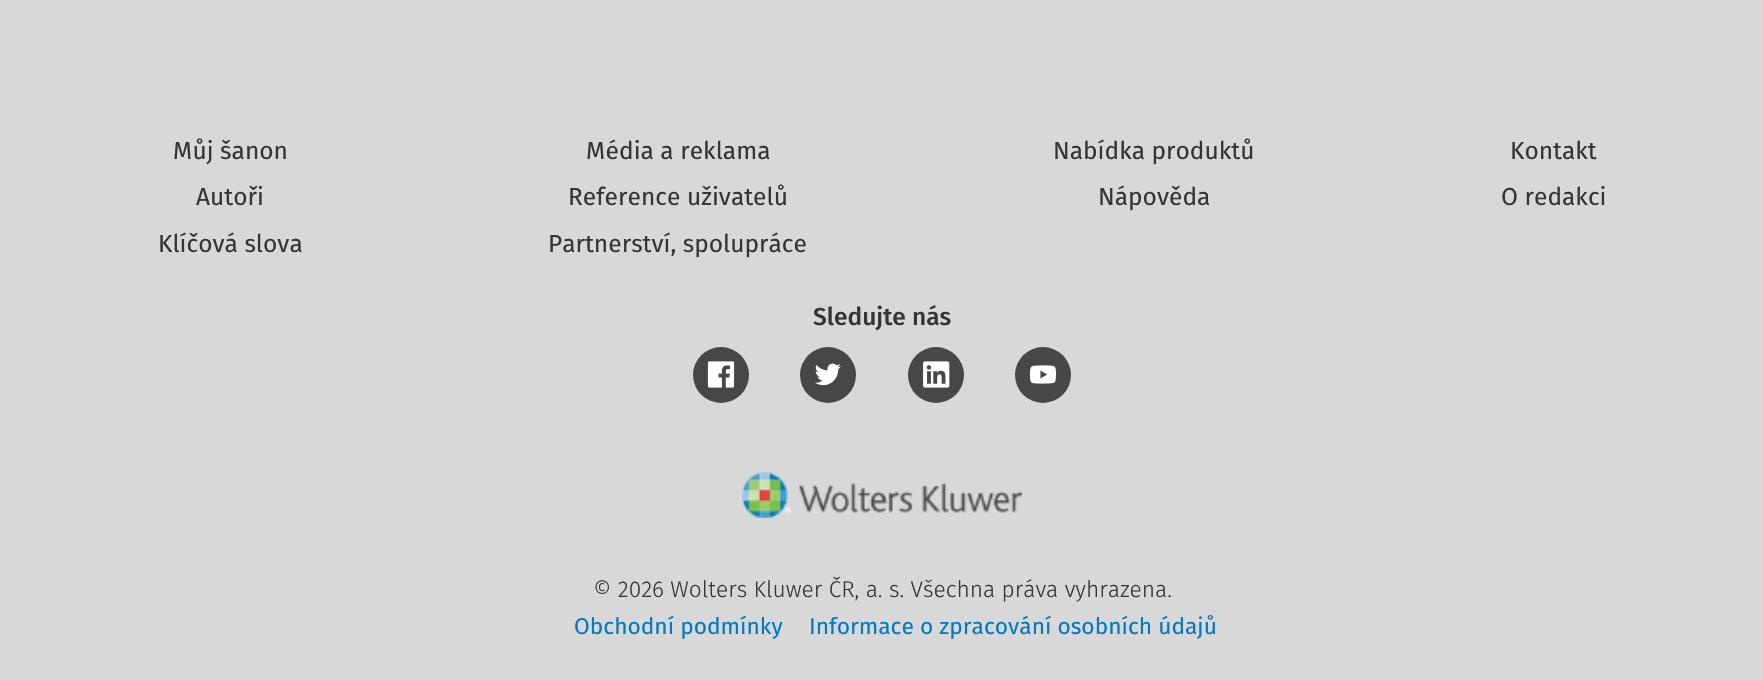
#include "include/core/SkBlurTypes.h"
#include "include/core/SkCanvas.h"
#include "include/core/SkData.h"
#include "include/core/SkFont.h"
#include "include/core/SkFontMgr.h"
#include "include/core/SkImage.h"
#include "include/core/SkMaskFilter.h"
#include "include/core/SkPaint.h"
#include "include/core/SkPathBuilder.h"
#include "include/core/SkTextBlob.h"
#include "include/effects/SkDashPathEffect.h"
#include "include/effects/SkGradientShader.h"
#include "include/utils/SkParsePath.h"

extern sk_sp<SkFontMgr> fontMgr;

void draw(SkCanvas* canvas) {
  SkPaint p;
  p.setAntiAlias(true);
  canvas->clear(SkColorSetRGB(216, 216, 216));
  p.setColor(SkColorSetRGB(71, 71, 71));
  canvas->drawCircle(721, 375, 28, p);
  canvas->drawImageRect(SkImages::DeferredFromEncodedData(SkData::MakeFromFileName("images/1.png")), SkRect::MakeLTRB(707, 361, 735, 388), SkSamplingOptions());
  canvas->drawCircle(828, 375, 28, p);
  canvas->drawImageRect(SkImages::DeferredFromEncodedData(SkData::MakeFromFileName("images/2.png")), SkRect::MakeLTRB(815, 363, 841, 386), SkSamplingOptions());
  canvas->drawCircle(936, 375, 28, p);
  canvas->drawImageRect(SkImages::DeferredFromEncodedData(SkData::MakeFromFileName("images/3.png")), SkRect::MakeLTRB(923, 361, 950, 388), SkSamplingOptions());
  canvas->drawCircle(1043, 375, 28, p);
  canvas->drawImageRect(SkImages::DeferredFromEncodedData(SkData::MakeFromFileName("images/4.png")), SkRect::MakeLTRB(1029, 365, 1057, 384), SkSamplingOptions());
  canvas->drawImageRect(SkImages::DeferredFromEncodedData(SkData::MakeFromFileName("images/5.png")), SkRect::MakeLTRB(742, 472, 1022, 518), SkSamplingOptions());
  SkFont font1(fontMgr->matchFamilyStyle("Fira Sans", SkFontStyle::Normal()), 24.5f);
  font1.setSubpixel(true);
  p.setColor(SkColorSetRGB(53, 53, 53));
  canvas->drawString("Můj šanon", 173, 159, font1, p);
  canvas->drawString("Autoři", 196, 205, font1, p);
  canvas->drawString("Klíčová slova", 158, 252, font1, p);
  canvas->drawString("Média a reklama", 586, 159, font1, p);
  canvas->drawString("Reference uživatelů", 568, 205, font1, p);
  canvas->drawString("Partnerství, spolupráce", 548, 252, font1, p);
  canvas->drawString("Nabídka produktů", 1053, 159, font1, p);
  canvas->drawString("Nápověda", 1098, 205, font1, p);
  canvas->drawString("Kontakt", 1510, 159, font1, p);
  canvas->drawString("O redakci", 1501, 205, font1, p);
  SkFont font2(fontMgr->matchFamilyStyle("Fira Sans", SkFontStyle(500, SkFontStyle::kNormal_Width, SkFontStyle::kUpright_Slant)), 24.5f);
  font2.setSubpixel(true);
  canvas->drawString("Sledujte nás", 813, 325, font2, p);
  SkFont font3(fontMgr->matchFamilyStyle("Fira Sans", SkFontStyle(300, SkFontStyle::kNormal_Width, SkFontStyle::kUpright_Slant)), 22.75f);
  font3.setSubpixel(true);
  canvas->drawString("© 2026 Wolters Kluwer ČR, a. s. Všechna práva vyhrazena.", 593, 597, font3, p);
  SkFont font4(fontMgr->matchFamilyStyle("Fira Sans", SkFontStyle::Normal()), 22.75f);
  font4.setSubpixel(true);
  p.setColor(SkColorSetRGB(0, 122, 195));
  canvas->drawString("Obchodní podmínky", 574, 634, font4, p);
  canvas->drawString("Informace o zpracování osobních údajů", 809, 634, font4, p);
}
